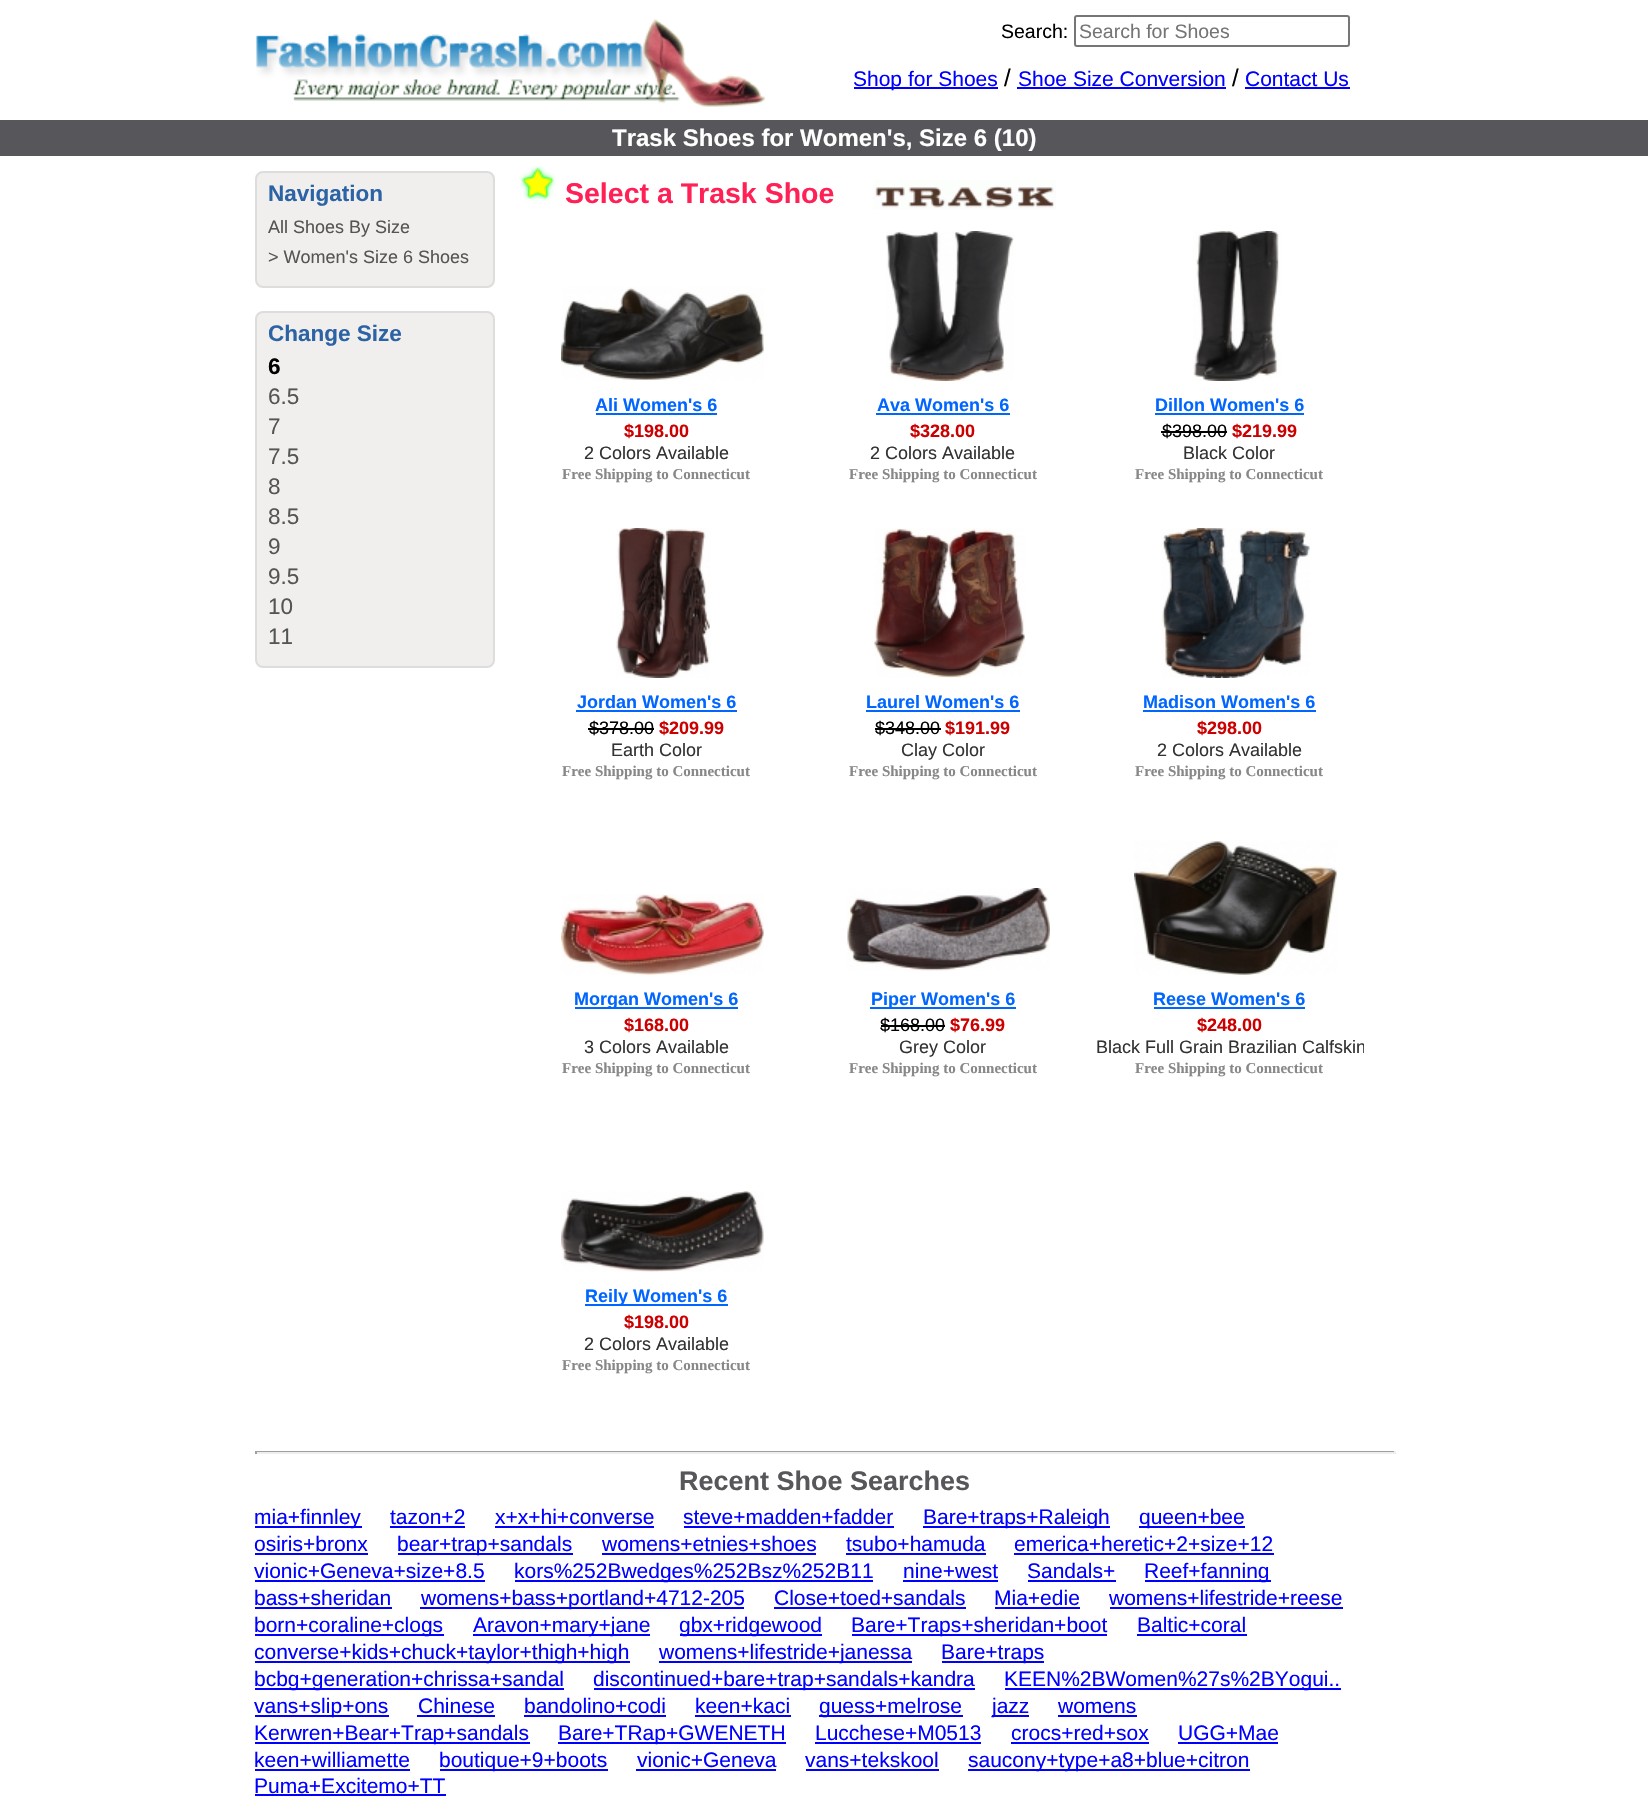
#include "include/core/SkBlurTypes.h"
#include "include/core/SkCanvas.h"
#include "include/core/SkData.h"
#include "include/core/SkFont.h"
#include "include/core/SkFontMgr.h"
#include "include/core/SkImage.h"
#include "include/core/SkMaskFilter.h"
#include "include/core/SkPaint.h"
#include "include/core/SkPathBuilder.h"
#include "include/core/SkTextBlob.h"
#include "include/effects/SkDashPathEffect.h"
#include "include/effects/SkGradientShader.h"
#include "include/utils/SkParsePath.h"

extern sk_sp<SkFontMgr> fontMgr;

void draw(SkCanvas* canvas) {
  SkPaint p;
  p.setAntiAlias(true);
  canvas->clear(SK_ColorWHITE);
  canvas->drawImageRect(SkImages::DeferredFromEncodedData(SkData::MakeFromFileName("images/1.png")), SkRect::MakeLTRB(256, 19, 765, 107), SkSamplingOptions());
  p.setStyle(SkPaint::kStroke_Style);
  p.setStrokeWidth(2);
  p.setColor(SkColorSetRGB(118, 118, 118));
  canvas->drawRoundRect(SkRect::MakeLTRB(1075, 16, 1349, 46), 2, 2, p);
  p.setStyle(SkPaint::kFill_Style);
  p.setColor(SkColorSetRGB(0, 0, 255));
  canvas->drawRect(SkRect::MakeLTRB(854, 87, 998, 89), p);
  canvas->drawRect(SkRect::MakeLTRB(1017, 87, 1226, 89), p);
  canvas->drawRect(SkRect::MakeLTRB(1245, 87, 1350, 89), p);
  p.setColor(SkColorSetRGB(87, 87, 91));
  canvas->drawRect(SkRect::MakeLTRB(0, 120, 1648, 156), p);
  p.setColor(SkColorSetRGB(240, 239, 237));
  canvas->drawRoundRect(SkRect::MakeLTRB(256, 172, 494, 287), 7, 7, p);
  p.setStyle(SkPaint::kStroke_Style);
  p.setColor(SkColorSetRGB(221, 221, 221));
  canvas->drawRoundRect(SkRect::MakeLTRB(256, 172, 494, 287), 7, 7, p);
  p.setStyle(SkPaint::kFill_Style);
  p.setColor(SkColorSetRGB(240, 239, 237));
  canvas->drawRoundRect(SkRect::MakeLTRB(256, 312, 494, 667), 7, 7, p);
  p.setStyle(SkPaint::kStroke_Style);
  p.setColor(SkColorSetRGB(221, 221, 221));
  canvas->drawRoundRect(SkRect::MakeLTRB(256, 312, 494, 667), 7, 7, p);
  canvas->drawImageRect(SkImages::DeferredFromEncodedData(SkData::MakeFromFileName("images/2.png")), SkRect::MakeLTRB(519, 165, 556, 201), SkSamplingOptions());
  canvas->drawImageRect(SkImages::DeferredFromEncodedData(SkData::MakeFromFileName("images/3.png")), SkRect::MakeLTRB(873, 180, 1056, 210), SkSamplingOptions());
  canvas->drawImageRect(SkImages::DeferredFromEncodedData(SkData::MakeFromFileName("images/4.png")), SkRect::MakeLTRB(561, 287, 764, 381), SkSamplingOptions());
  p.setStyle(SkPaint::kFill_Style);
  p.setColor(SkColorSetRGB(0, 102, 255));
  canvas->drawRect(SkRect::MakeLTRB(596, 413, 717, 415), p);
  canvas->drawImageRect(SkImages::DeferredFromEncodedData(SkData::MakeFromFileName("images/5.png")), SkRect::MakeLTRB(886, 231, 1014, 381), SkSamplingOptions());
  canvas->drawRect(SkRect::MakeLTRB(876, 413, 1010, 415), p);
  canvas->drawImageRect(SkImages::DeferredFromEncodedData(SkData::MakeFromFileName("images/6.png")), SkRect::MakeLTRB(1193, 231, 1281, 381), SkSamplingOptions());
  canvas->drawRect(SkRect::MakeLTRB(1155, 413, 1304, 415), p);
  p.setColor(SK_ColorBLACK);
  canvas->drawRect(SkRect::MakeLTRB(1161, 431, 1227, 433), p);
  canvas->drawImageRect(SkImages::DeferredFromEncodedData(SkData::MakeFromFileName("images/7.png")), SkRect::MakeLTRB(616, 528, 711, 678), SkSamplingOptions());
  p.setColor(SkColorSetRGB(0, 102, 255));
  canvas->drawRect(SkRect::MakeLTRB(576, 710, 737, 712), p);
  p.setColor(SK_ColorBLACK);
  canvas->drawRect(SkRect::MakeLTRB(588, 728, 654, 730), p);
  canvas->drawImageRect(SkImages::DeferredFromEncodedData(SkData::MakeFromFileName("images/8.png")), SkRect::MakeLTRB(874, 528, 1025, 678), SkSamplingOptions());
  p.setColor(SkColorSetRGB(0, 102, 255));
  canvas->drawRect(SkRect::MakeLTRB(866, 710, 1020, 712), p);
  p.setColor(SK_ColorBLACK);
  canvas->drawRect(SkRect::MakeLTRB(875, 728, 941, 730), p);
  canvas->drawImageRect(SkImages::DeferredFromEncodedData(SkData::MakeFromFileName("images/9.png")), SkRect::MakeLTRB(1161, 528, 1310, 678), SkSamplingOptions());
  p.setColor(SkColorSetRGB(0, 102, 255));
  canvas->drawRect(SkRect::MakeLTRB(1143, 710, 1316, 712), p);
  canvas->drawImageRect(SkImages::DeferredFromEncodedData(SkData::MakeFromFileName("images/10.png")), SkRect::MakeLTRB(561, 894, 764, 975), SkSamplingOptions());
  canvas->drawRect(SkRect::MakeLTRB(575, 1007, 738, 1009), p);
  canvas->drawImageRect(SkImages::DeferredFromEncodedData(SkData::MakeFromFileName("images/11.png")), SkRect::MakeLTRB(847, 888, 1050, 971), SkSamplingOptions());
  canvas->drawRect(SkRect::MakeLTRB(870, 1007, 1016, 1009), p);
  p.setColor(SK_ColorBLACK);
  canvas->drawRect(SkRect::MakeLTRB(881, 1025, 945, 1027), p);
  canvas->drawImageRect(SkImages::DeferredFromEncodedData(SkData::MakeFromFileName("images/12.png")), SkRect::MakeLTRB(1134, 840, 1337, 975), SkSamplingOptions());
  p.setColor(SkColorSetRGB(0, 102, 255));
  canvas->drawRect(SkRect::MakeLTRB(1154, 1007, 1305, 1009), p);
  canvas->drawImageRect(SkImages::DeferredFromEncodedData(SkData::MakeFromFileName("images/13.png")), SkRect::MakeLTRB(561, 1191, 764, 1272), SkSamplingOptions());
  canvas->drawRect(SkRect::MakeLTRB(585, 1304, 728, 1306), p);
  p.setColor(SkColorSetRGB(159, 159, 159));
  canvas->drawRect(SkRect::MakeLTRB(255, 1451, 1395, 1452), p);
  p.setColor(SkColorSetRGB(238, 238, 238));
  canvas->drawRect(SkRect::MakeLTRB(1394, 1451, 1396, 1454), p);
  canvas->drawRect(SkRect::MakeLTRB(255, 1452, 1395, 1454), p);
  p.setColor(SkColorSetRGB(159, 159, 159));
  canvas->drawRect(SkRect::MakeLTRB(255, 1451, 257, 1454), p);
  p.setColor(SkColorSetRGB(0, 0, 255));
  canvas->drawRect(SkRect::MakeLTRB(255, 1526, 362, 1528), p);
  canvas->drawRect(SkRect::MakeLTRB(390, 1526, 465, 1528), p);
  canvas->drawRect(SkRect::MakeLTRB(495, 1526, 654, 1528), p);
  canvas->drawRect(SkRect::MakeLTRB(684, 1526, 894, 1528), p);
  canvas->drawRect(SkRect::MakeLTRB(923, 1526, 1110, 1528), p);
  canvas->drawRect(SkRect::MakeLTRB(1139, 1526, 1245, 1528), p);
  canvas->drawRect(SkRect::MakeLTRB(255, 1553, 368, 1555), p);
  canvas->drawRect(SkRect::MakeLTRB(398, 1553, 573, 1555), p);
  canvas->drawRect(SkRect::MakeLTRB(602, 1553, 816, 1555), p);
  canvas->drawRect(SkRect::MakeLTRB(846, 1553, 986, 1555), p);
  canvas->drawRect(SkRect::MakeLTRB(1014, 1553, 1274, 1555), p);
  canvas->drawRect(SkRect::MakeLTRB(255, 1580, 485, 1582), p);
  canvas->drawRect(SkRect::MakeLTRB(515, 1580, 873, 1582), p);
  canvas->drawRect(SkRect::MakeLTRB(903, 1580, 998, 1582), p);
  canvas->drawRect(SkRect::MakeLTRB(1028, 1580, 1116, 1582), p);
  canvas->drawRect(SkRect::MakeLTRB(1145, 1580, 1271, 1582), p);
  canvas->drawRect(SkRect::MakeLTRB(255, 1607, 392, 1609), p);
  canvas->drawRect(SkRect::MakeLTRB(420, 1607, 744, 1609), p);
  canvas->drawRect(SkRect::MakeLTRB(774, 1607, 966, 1609), p);
  canvas->drawRect(SkRect::MakeLTRB(995, 1607, 1080, 1609), p);
  canvas->drawRect(SkRect::MakeLTRB(1110, 1607, 1343, 1609), p);
  canvas->drawRect(SkRect::MakeLTRB(255, 1634, 444, 1636), p);
  canvas->drawRect(SkRect::MakeLTRB(473, 1634, 650, 1636), p);
  canvas->drawRect(SkRect::MakeLTRB(680, 1634, 822, 1636), p);
  canvas->drawRect(SkRect::MakeLTRB(852, 1634, 1107, 1636), p);
  canvas->drawRect(SkRect::MakeLTRB(1137, 1634, 1247, 1636), p);
  canvas->drawRect(SkRect::MakeLTRB(255, 1661, 630, 1663), p);
  canvas->drawRect(SkRect::MakeLTRB(659, 1661, 912, 1663), p);
  canvas->drawRect(SkRect::MakeLTRB(942, 1661, 1044, 1663), p);
  canvas->drawRect(SkRect::MakeLTRB(255, 1688, 564, 1690), p);
  canvas->drawRect(SkRect::MakeLTRB(594, 1688, 975, 1690), p);
  canvas->drawRect(SkRect::MakeLTRB(1005, 1688, 1341, 1690), p);
  canvas->drawRect(SkRect::MakeLTRB(255, 1715, 389, 1717), p);
  canvas->drawRect(SkRect::MakeLTRB(417, 1715, 495, 1717), p);
  canvas->drawRect(SkRect::MakeLTRB(524, 1715, 666, 1717), p);
  canvas->drawRect(SkRect::MakeLTRB(695, 1715, 791, 1717), p);
  canvas->drawRect(SkRect::MakeLTRB(819, 1715, 963, 1717), p);
  canvas->drawRect(SkRect::MakeLTRB(992, 1715, 1029, 1717), p);
  canvas->drawRect(SkRect::MakeLTRB(1058, 1715, 1137, 1717), p);
  canvas->drawRect(SkRect::MakeLTRB(255, 1742, 530, 1744), p);
  canvas->drawRect(SkRect::MakeLTRB(558, 1742, 786, 1744), p);
  canvas->drawRect(SkRect::MakeLTRB(815, 1742, 981, 1744), p);
  canvas->drawRect(SkRect::MakeLTRB(1011, 1742, 1149, 1744), p);
  canvas->drawRect(SkRect::MakeLTRB(1178, 1742, 1278, 1744), p);
  canvas->drawRect(SkRect::MakeLTRB(255, 1769, 410, 1771), p);
  canvas->drawRect(SkRect::MakeLTRB(440, 1769, 608, 1771), p);
  canvas->drawRect(SkRect::MakeLTRB(636, 1769, 776, 1771), p);
  canvas->drawRect(SkRect::MakeLTRB(806, 1769, 939, 1771), p);
  canvas->drawRect(SkRect::MakeLTRB(968, 1769, 1250, 1771), p);
  canvas->drawRect(SkRect::MakeLTRB(255, 1794, 446, 1796), p);
  SkFont font1(fontMgr->matchFamilyStyle("Liberation Sans", SkFontStyle::Normal()), 19.5f);
  font1.setSubpixel(true);
  p.setColor(SK_ColorBLACK);
  canvas->drawString("Search:", 1001, 38, font1, p);
  p.setColor(SkColorSetRGB(117, 117, 117));
  canvas->drawString("Search for Shoes", 1079, 38, font1, p);
  SkFont font2(fontMgr->matchFamilyStyle("Liberation Sans", SkFontStyle::Normal()), 21);
  font2.setSubpixel(true);
  p.setColor(SkColorSetRGB(0, 0, 255));
  canvas->drawString("Shop for Shoes", 853, 86, font2, p);
  SkFont font3(fontMgr->matchFamilyStyle("Liberation Sans", SkFontStyle::Normal()), 24);
  font3.setSubpixel(true);
  p.setColor(SK_ColorBLACK);
  canvas->drawString("/", 1004, 86, font3, p);
  p.setColor(SkColorSetRGB(0, 0, 255));
  canvas->drawString("Shoe Size Conversion", 1018, 86, font2, p);
  p.setColor(SK_ColorBLACK);
  canvas->drawString("/", 1232, 86, font3, p);
  p.setColor(SkColorSetRGB(0, 0, 255));
  canvas->drawString("Contact Us", 1245, 86, font2, p);
  SkFont font4(fontMgr->matchFamilyStyle("Liberation Sans", SkFontStyle::Bold()), 24);
  font4.setSubpixel(true);
  p.setColor(SK_ColorWHITE);
  canvas->drawString("Trask Shoes for Women's, Size 6 (10)", 612, 146, font4, p);
  SkFont font5(fontMgr->matchFamilyStyle("Liberation Sans", SkFontStyle::Bold()), 22.5f);
  font5.setSubpixel(true);
  p.setColor(SkColorSetRGB(44, 99, 165));
  canvas->drawString("Navigation", 268, 201, font5, p);
  SkFont font6(fontMgr->matchFamilyStyle("Liberation Sans", SkFontStyle::Normal()), 18);
  font6.setSubpixel(true);
  p.setColor(SkColorSetRGB(85, 85, 85));
  canvas->drawString("All Shoes By Size", 268, 233, font6, p);
  canvas->drawString("> Women's Size 6 Shoes", 268, 263, font6, p);
  p.setColor(SkColorSetRGB(44, 99, 165));
  canvas->drawString("Change Size", 268, 341, font5, p);
  p.setColor(SK_ColorBLACK);
  canvas->drawString("6", 268, 374, font5, p);
  SkFont font7(fontMgr->matchFamilyStyle("Liberation Sans", SkFontStyle::Normal()), 22.5f);
  font7.setSubpixel(true);
  p.setColor(SkColorSetRGB(85, 85, 85));
  canvas->drawString("6.5", 268, 404, font7, p);
  canvas->drawString("7", 268, 434, font7, p);
  canvas->drawString("7.5", 268, 464, font7, p);
  canvas->drawString("8", 268, 494, font7, p);
  canvas->drawString("8.5", 268, 524, font7, p);
  canvas->drawString("9", 268, 554, font7, p);
  canvas->drawString("9.5", 268, 584, font7, p);
  canvas->drawString("10", 268, 614, font7, p);
  canvas->drawString("11", 268, 644, font7, p);
  SkFont font8(fontMgr->matchFamilyStyle("Liberation Sans", SkFontStyle::Bold()), 28.5f);
  font8.setSubpixel(true);
  p.setColor(SkColorSetRGB(255, 33, 85));
  canvas->drawString("Select a Trask Shoe", 565, 203, font8, p);
  SkFont font9(fontMgr->matchFamilyStyle("Liberation Sans", SkFontStyle::Bold()), 18);
  font9.setSubpixel(true);
  p.setColor(SkColorSetRGB(0, 102, 255));
  canvas->drawString("Ali Women's 6", 595, 411, font9, p);
  p.setColor(SkColorSetRGB(204, 0, 0));
  canvas->drawString("$198.00", 624, 437, font9, p);
  p.setColor(SkColorSetRGB(51, 51, 51));
  canvas->drawString("2 Colors Available", 584, 459, font6, p);
  SkFont font10(fontMgr->matchFamilyStyle("Liberation Serif", SkFontStyle::Bold()), 15);
  font10.setSubpixel(true);
  p.setColor(SkColorSetRGB(136, 136, 136));
  canvas->drawString("Free Shipping to Connecticut", 562, 479, font10, p);
  p.setColor(SkColorSetRGB(0, 102, 255));
  canvas->drawString("Ava Women's 6", 877, 411, font9, p);
  p.setColor(SkColorSetRGB(204, 0, 0));
  canvas->drawString("$328.00", 910, 437, font9, p);
  p.setColor(SkColorSetRGB(51, 51, 51));
  canvas->drawString("2 Colors Available", 870, 459, font6, p);
  p.setColor(SkColorSetRGB(136, 136, 136));
  canvas->drawString("Free Shipping to Connecticut", 849, 479, font10, p);
  p.setColor(SkColorSetRGB(0, 102, 255));
  canvas->drawString("Dillon Women's 6", 1155, 411, font9, p);
  p.setColor(SK_ColorBLACK);
  canvas->drawString("$398.00", 1162, 437, font6, p);
  p.setColor(SkColorSetRGB(204, 0, 0));
  canvas->drawString("$219.99", 1232, 437, font9, p);
  p.setColor(SkColorSetRGB(51, 51, 51));
  canvas->drawString("Black Color", 1183, 459, font6, p);
  p.setColor(SkColorSetRGB(136, 136, 136));
  canvas->drawString("Free Shipping to Connecticut", 1135, 479, font10, p);
  p.setColor(SkColorSetRGB(0, 102, 255));
  canvas->drawString("Jordan Women's 6", 577, 708, font9, p);
  p.setColor(SK_ColorBLACK);
  canvas->drawString("$378.00", 589, 734, font6, p);
  p.setColor(SkColorSetRGB(204, 0, 0));
  canvas->drawString("$209.99", 659, 734, font9, p);
  p.setColor(SkColorSetRGB(51, 51, 51));
  canvas->drawString("Earth Color", 611, 756, font6, p);
  p.setColor(SkColorSetRGB(136, 136, 136));
  canvas->drawString("Free Shipping to Connecticut", 562, 776, font10, p);
  p.setColor(SkColorSetRGB(0, 102, 255));
  canvas->drawString("Laurel Women's 6", 866, 708, font9, p);
  p.setColor(SK_ColorBLACK);
  canvas->drawString("$348.00", 875, 734, font6, p);
  p.setColor(SkColorSetRGB(204, 0, 0));
  canvas->drawString("$191.99", 945, 734, font9, p);
  p.setColor(SkColorSetRGB(51, 51, 51));
  canvas->drawString("Clay Color", 901, 756, font6, p);
  p.setColor(SkColorSetRGB(136, 136, 136));
  canvas->drawString("Free Shipping to Connecticut", 849, 776, font10, p);
  p.setColor(SkColorSetRGB(0, 102, 255));
  canvas->drawString("Madison Women's 6", 1143, 708, font9, p);
  p.setColor(SkColorSetRGB(204, 0, 0));
  canvas->drawString("$298.00", 1197, 734, font9, p);
  p.setColor(SkColorSetRGB(51, 51, 51));
  canvas->drawString("2 Colors Available", 1157, 756, font6, p);
  p.setColor(SkColorSetRGB(136, 136, 136));
  canvas->drawString("Free Shipping to Connecticut", 1135, 776, font10, p);
  p.setColor(SkColorSetRGB(0, 102, 255));
  canvas->drawString("Morgan Women's 6", 574, 1005, font9, p);
  p.setColor(SkColorSetRGB(204, 0, 0));
  canvas->drawString("$168.00", 624, 1031, font9, p);
  p.setColor(SkColorSetRGB(51, 51, 51));
  canvas->drawString("3 Colors Available", 584, 1053, font6, p);
  p.setColor(SkColorSetRGB(136, 136, 136));
  canvas->drawString("Free Shipping to Connecticut", 562, 1073, font10, p);
  p.setColor(SkColorSetRGB(0, 102, 255));
  canvas->drawString("Piper Women's 6", 871, 1005, font9, p);
  p.setColor(SK_ColorBLACK);
  canvas->drawString("$168.00", 880, 1031, font6, p);
  p.setColor(SkColorSetRGB(204, 0, 0));
  canvas->drawString("$76.99", 950, 1031, font9, p);
  p.setColor(SkColorSetRGB(51, 51, 51));
  canvas->drawString("Grey Color", 899, 1053, font6, p);
  p.setColor(SkColorSetRGB(136, 136, 136));
  canvas->drawString("Free Shipping to Connecticut", 849, 1073, font10, p);
  p.setColor(SkColorSetRGB(0, 102, 255));
  canvas->drawString("Reese Women's 6", 1153, 1005, font9, p);
  p.setColor(SkColorSetRGB(204, 0, 0));
  canvas->drawString("$248.00", 1197, 1031, font9, p);
  canvas->save();
  canvas->clipPath(SkPathBuilder().moveTo(1106, 825).lineTo(1355, 825).cubicTo(1360, 825, 1364, 829, 1364, 834).lineTo(1364, 1101).cubicTo(1364, 1106, 1360, 1110, 1355, 1110).lineTo(1106, 1110).cubicTo(1101, 1110, 1097, 1106, 1097, 1101).lineTo(1097, 834).cubicTo(1097, 829, 1101, 825, 1106, 825).close().detach(), true);
  p.setColor(SkColorSetRGB(51, 51, 51));
  canvas->drawString("Black Full Grain Brazilian Calfskin", 1096, 1053, font6, p);
  canvas->restore();
  p.setColor(SkColorSetRGB(136, 136, 136));
  canvas->drawString("Free Shipping to Connecticut", 1135, 1073, font10, p);
  p.setColor(SkColorSetRGB(0, 102, 255));
  canvas->drawString("Reily Women's 6", 585, 1302, font9, p);
  p.setColor(SkColorSetRGB(204, 0, 0));
  canvas->drawString("$198.00", 624, 1328, font9, p);
  p.setColor(SkColorSetRGB(51, 51, 51));
  canvas->drawString("2 Colors Available", 584, 1350, font6, p);
  p.setColor(SkColorSetRGB(136, 136, 136));
  canvas->drawString("Free Shipping to Connecticut", 562, 1370, font10, p);
  SkFont font11(fontMgr->matchFamilyStyle("Liberation Sans", SkFontStyle::Bold()), 27);
  font11.setSubpixel(true);
  p.setColor(SkColorSetRGB(87, 87, 91));
  canvas->drawString("Recent Shoe Searches", 679, 1490, font11, p);
  p.setColor(SkColorSetRGB(0, 0, 255));
  canvas->drawString("mia+finnley", 254, 1524, font2, p);
  canvas->drawString("tazon+2", 390, 1524, font2, p);
  canvas->drawString("x+x+hi+converse", 495, 1524, font2, p);
  canvas->drawString("steve+madden+fadder", 683, 1524, font2, p);
  canvas->drawString("Bare+traps+Raleigh", 923, 1524, font2, p);
  canvas->drawString("queen+bee", 1139, 1524, font2, p);
  canvas->drawString("osiris+bronx", 254, 1551, font2, p);
  canvas->drawString("bear+trap+sandals", 397, 1551, font2, p);
  canvas->drawString("womens+etnies+shoes", 602, 1551, font2, p);
  canvas->drawString("tsubo+hamuda", 846, 1551, font2, p);
  canvas->drawString("emerica+heretic+2+size+12", 1014, 1551, font2, p);
  canvas->drawString("vionic+Geneva+size+8.5", 254, 1578, font2, p);
  canvas->drawString("kors%252Bwedges%252Bsz%252B11", 514, 1578, font2, p);
  canvas->drawString("nine+west", 903, 1578, font2, p);
  canvas->drawString("Sandals+", 1027, 1578, font2, p);
  canvas->drawString("Reef+fanning", 1144, 1578, font2, p);
  canvas->drawString("bass+sheridan", 254, 1605, font2, p);
  canvas->drawString("womens+bass+portland+4712-205", 421, 1605, font2, p);
  canvas->drawString("Close+toed+sandals", 774, 1605, font2, p);
  canvas->drawString("Mia+edie", 994, 1605, font2, p);
  canvas->drawString("womens+lifestride+reese", 1109, 1605, font2, p);
  canvas->drawString("born+coraline+clogs", 254, 1632, font2, p);
  canvas->drawString("Aravon+mary+jane", 473, 1632, font2, p);
  canvas->drawString("gbx+ridgewood", 679, 1632, font2, p);
  canvas->drawString("Bare+Traps+sheridan+boot", 851, 1632, font2, p);
  canvas->drawString("Baltic+coral", 1137, 1632, font2, p);
  canvas->drawString("converse+kids+chuck+taylor+thigh+high", 254, 1659, font2, p);
  canvas->drawString("womens+lifestride+janessa", 659, 1659, font2, p);
  canvas->drawString("Bare+traps", 941, 1659, font2, p);
  canvas->drawString("bcbg+generation+chrissa+sandal", 254, 1686, font2, p);
  canvas->drawString("discontinued+bare+trap+sandals+kandra", 593, 1686, font2, p);
  canvas->drawString("KEEN%2BWomen%27s%2BYogui..", 1004, 1686, font2, p);
  canvas->drawString("vans+slip+ons", 254, 1713, font2, p);
  canvas->drawString("Chinese", 418, 1713, font2, p);
  canvas->drawString("bandolino+codi", 524, 1713, font2, p);
  canvas->drawString("keen+kaci", 695, 1713, font2, p);
  canvas->drawString("guess+melrose", 819, 1713, font2, p);
  canvas->drawString("jazz", 992, 1713, font2, p);
  canvas->drawString("womens", 1058, 1713, font2, p);
  canvas->drawString("Kerwren+Bear+Trap+sandals", 254, 1740, font2, p);
  canvas->drawString("Bare+TRap+GWENETH", 558, 1740, font2, p);
  canvas->drawString("Lucchese+M0513", 815, 1740, font2, p);
  canvas->drawString("crocs+red+sox", 1011, 1740, font2, p);
  canvas->drawString("UGG+Mae", 1178, 1740, font2, p);
  canvas->drawString("keen+williamette", 254, 1767, font2, p);
  canvas->drawString("boutique+9+boots", 439, 1767, font2, p);
  canvas->drawString("vionic+Geneva", 637, 1767, font2, p);
  canvas->drawString("vans+tekskool", 805, 1767, font2, p);
  canvas->drawString("saucony+type+a8+blue+citron", 968, 1767, font2, p);
  canvas->drawString("Puma+Excitemo+TT", 254, 1793, font2, p);
}
